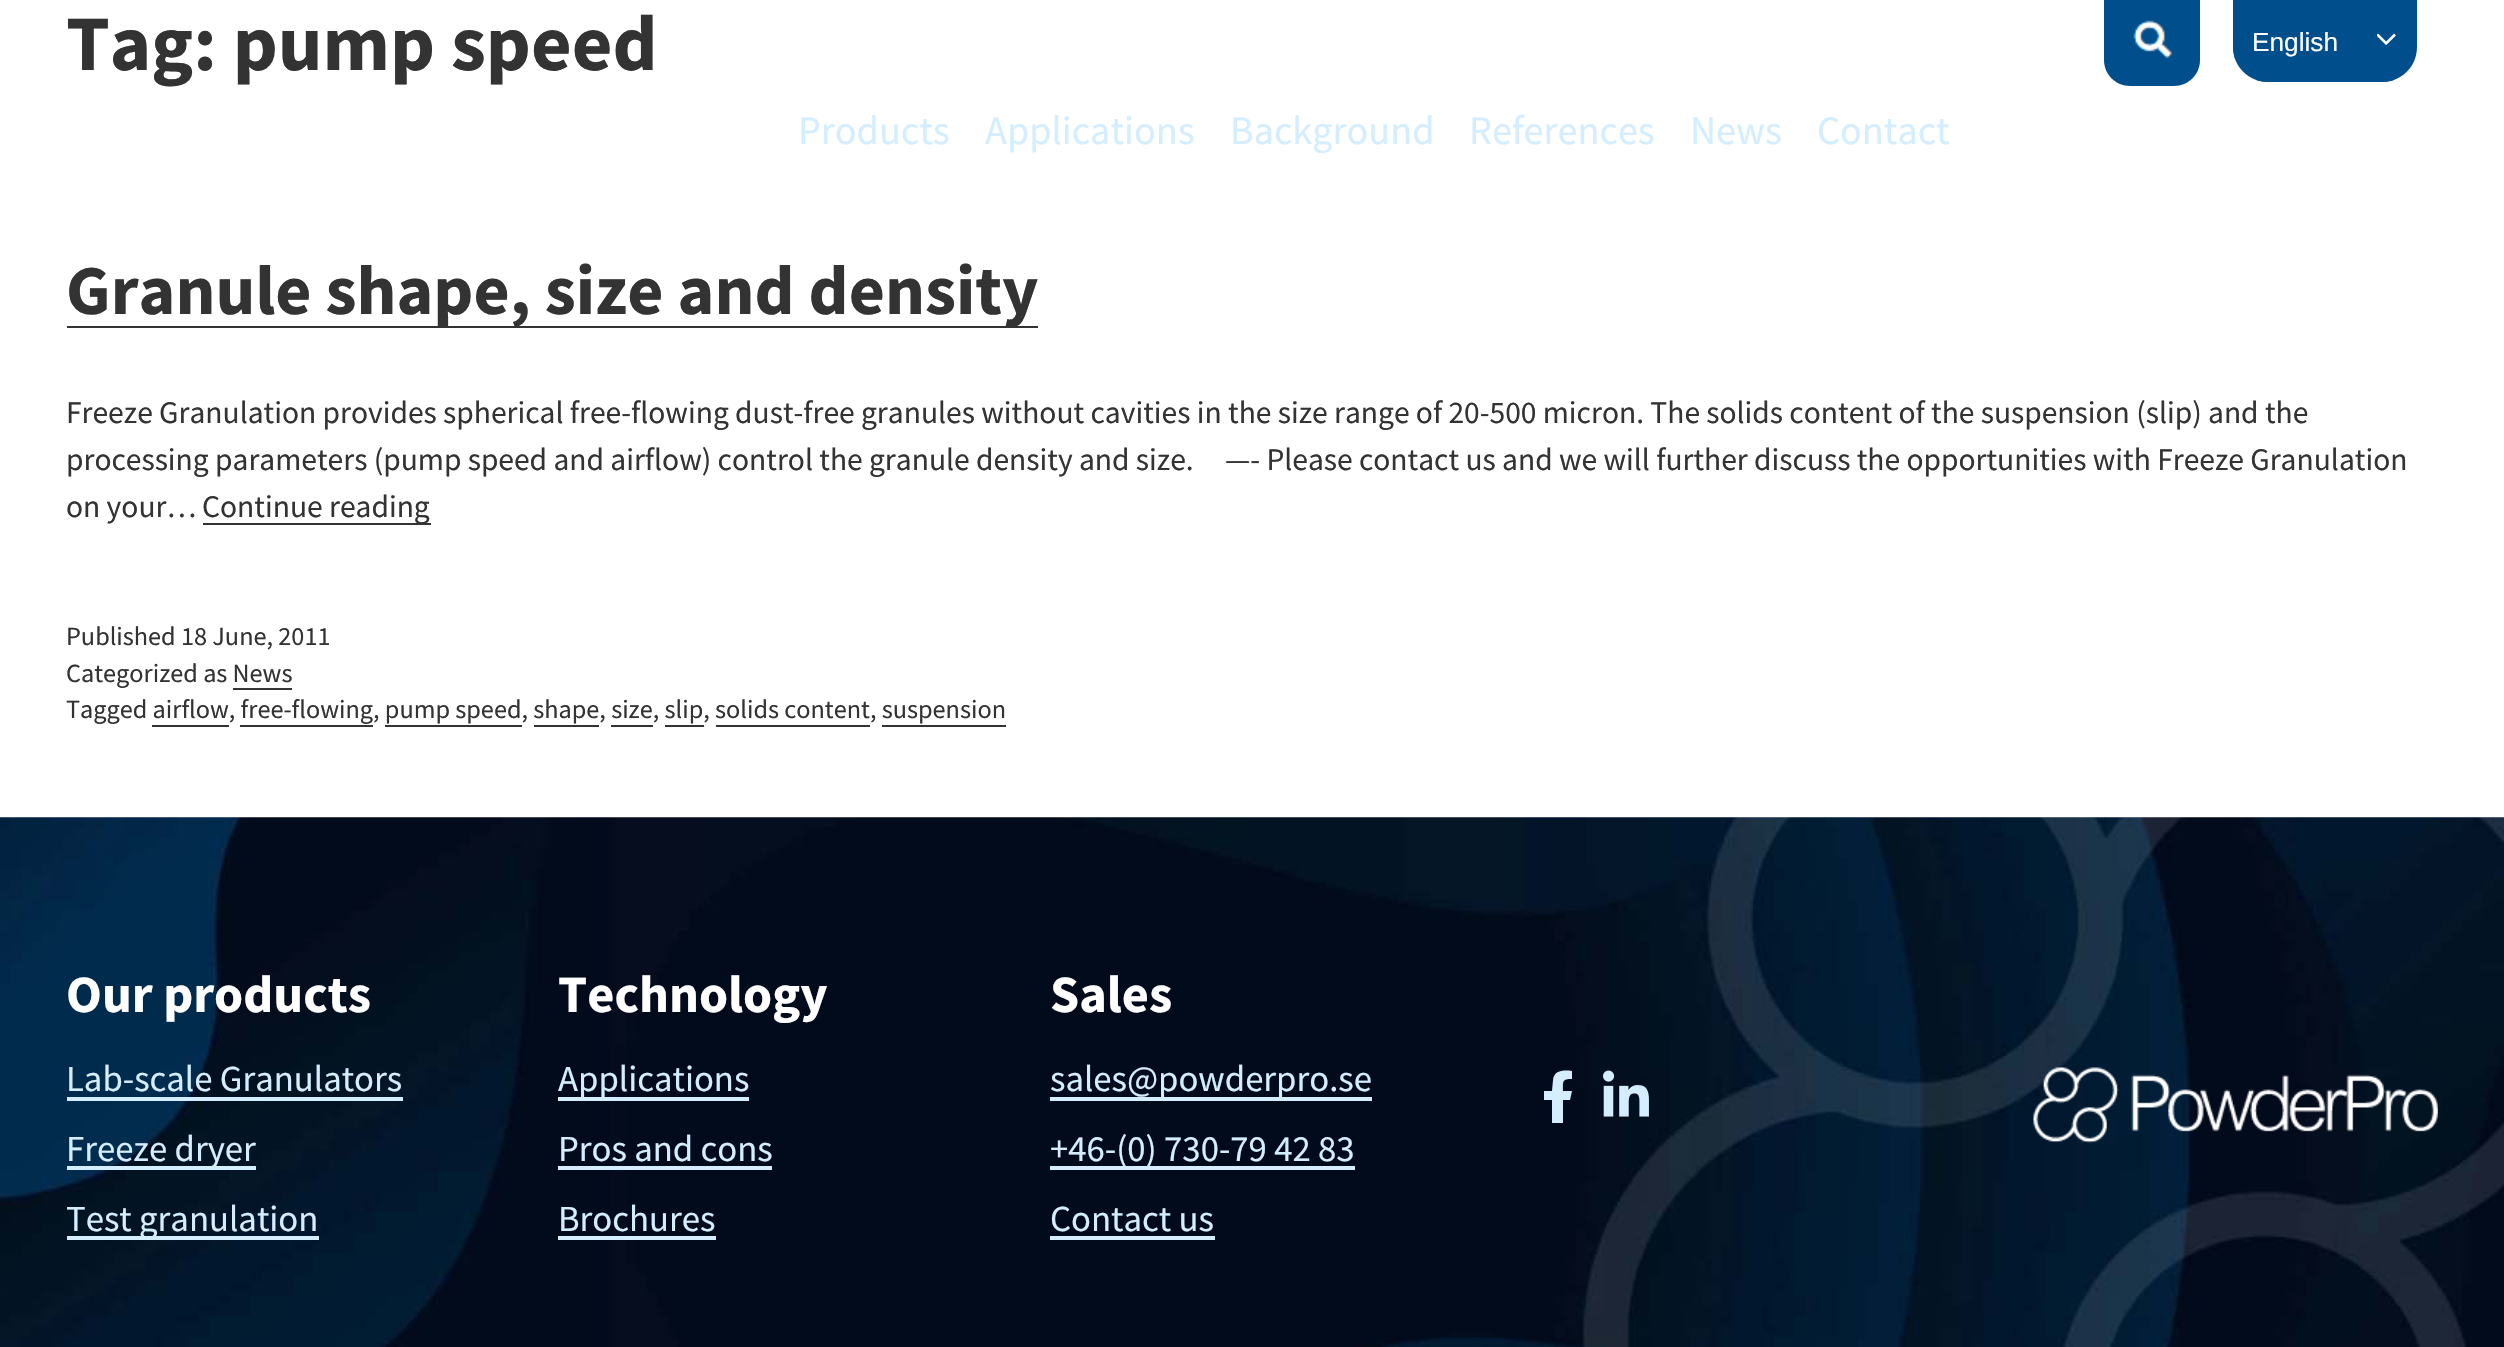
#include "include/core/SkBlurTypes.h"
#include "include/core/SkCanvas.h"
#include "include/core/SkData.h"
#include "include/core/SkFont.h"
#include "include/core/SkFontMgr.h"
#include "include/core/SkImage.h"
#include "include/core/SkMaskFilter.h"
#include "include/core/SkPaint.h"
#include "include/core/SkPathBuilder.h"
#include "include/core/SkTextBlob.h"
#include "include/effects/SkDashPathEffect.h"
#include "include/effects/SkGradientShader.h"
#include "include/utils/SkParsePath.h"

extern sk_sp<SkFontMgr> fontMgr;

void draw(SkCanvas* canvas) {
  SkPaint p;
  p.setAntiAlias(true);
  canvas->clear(SK_ColorWHITE);
  p.setColor(SkColorSetRGB(51, 51, 51));
  canvas->drawRect(SkRect::MakeLTRB(67, 326, 1038, 328), p);
  canvas->drawRect(SkRect::MakeLTRB(203, 523, 431, 525), p);
  canvas->drawRect(SkRect::MakeLTRB(233, 688, 292, 690), p);
  canvas->drawRect(SkRect::MakeLTRB(152, 725, 229, 727), p);
  canvas->drawRect(SkRect::MakeLTRB(240, 725, 373, 727), p);
  canvas->drawRect(SkRect::MakeLTRB(385, 725, 522, 727), p);
  canvas->drawRect(SkRect::MakeLTRB(534, 725, 599, 727), p);
  canvas->drawRect(SkRect::MakeLTRB(611, 725, 653, 727), p);
  canvas->drawRect(SkRect::MakeLTRB(665, 725, 704, 727), p);
  canvas->drawRect(SkRect::MakeLTRB(716, 725, 870, 727), p);
  canvas->drawRect(SkRect::MakeLTRB(882, 725, 1006, 727), p);
  p.setColor(SkColorSetRGB(0, 79, 140));
  canvas->drawPath(SkPathBuilder().moveTo(2104, 0).lineTo(2200, 0).lineTo(2200, 60).cubicTo(2200, 74.5f, 2188.5f, 86, 2174, 86).lineTo(2130, 86).cubicTo(2115.5f, 86, 2104, 74.5f, 2104, 60).close().detach(), p);
  canvas->drawImageRect(SkImages::DeferredFromEncodedData(SkData::MakeFromFileName("images/1.png")), SkRect::MakeLTRB(2133, 20, 2172, 59), SkSamplingOptions());
  canvas->drawImageRect(SkImages::DeferredFromEncodedData(SkData::MakeFromFileName("images/2.png")), SkRect::MakeLTRB(0, 817, 2504, 1347), SkSamplingOptions());
  p.setColor(SkColorSetRGB(212, 238, 255));
  canvas->drawRect(SkRect::MakeLTRB(67, 1097, 403, 1101), p);
  canvas->drawRect(SkRect::MakeLTRB(67, 1166, 256, 1170), p);
  canvas->drawRect(SkRect::MakeLTRB(67, 1236, 319, 1240), p);
  canvas->drawRect(SkRect::MakeLTRB(558, 1097, 749, 1101), p);
  canvas->drawRect(SkRect::MakeLTRB(558, 1166, 772, 1170), p);
  canvas->drawRect(SkRect::MakeLTRB(558, 1236, 716, 1240), p);
  canvas->drawRect(SkRect::MakeLTRB(1050, 1097, 1372, 1101), p);
  canvas->drawRect(SkRect::MakeLTRB(1050, 1166, 1355, 1170), p);
  canvas->drawRect(SkRect::MakeLTRB(1050, 1236, 1215, 1240), p);
  canvas->drawPath(SkPathBuilder().moveTo(1570, 1100).lineTo(1563, 1100).lineTo(1563, 1123).lineTo(1552, 1123).lineTo(1552, 1100).lineTo(1544, 1100).lineTo(1544, 1091).lineTo(1552, 1091).lineTo(1553, 1080).cubicTo(1554, 1070, 1564, 1070, 1572, 1071).lineTo(1572, 1079).cubicTo(1562, 1079, 1563, 1081, 1563, 1091).lineTo(1572, 1091).close().detach(), p);
  canvas->drawImageRect(SkImages::DeferredFromEncodedData(SkData::MakeFromFileName("images/3.png")), SkRect::MakeLTRB(1603, 1070, 1649, 1117), SkSamplingOptions());
  canvas->drawImageRect(SkImages::DeferredFromEncodedData(SkData::MakeFromFileName("images/4.png")), SkRect::MakeLTRB(2033, 1067, 2438, 1143), SkSamplingOptions());
  p.setColor(SkColorSetRGB(0, 79, 140));
  canvas->drawPath(SkPathBuilder().moveTo(2233, 0).lineTo(2417, 0).lineTo(2417, 47).cubicTo(2417, 66.5f, 2401.5f, 82, 2382, 82).lineTo(2268, 82).cubicTo(2248.5f, 82, 2233, 66.5f, 2233, 47).close().detach(), p);
  canvas->drawPath(SkPathBuilder(SkPathFillType::kEvenOdd).moveTo(2233, 0).lineTo(2233, 47).cubicTo(2233, 51, 2234, 55, 2235, 59).lineTo(2235, 2).lineTo(2417, 2).lineTo(2417, 0).close().moveTo(2394, 80).lineTo(2256, 80).cubicTo(2260, 81, 2264, 82, 2268, 82).lineTo(2382, 82).cubicTo(2386, 82, 2390, 81, 2394, 80).close().detach(), p);
  canvas->drawImageRect(SkImages::DeferredFromEncodedData(SkData::MakeFromFileName("images/5.png")), SkRect::MakeLTRB(2377, 33, 2396, 45), SkSamplingOptions());
  SkFont font1(fontMgr->matchFamilyStyle("Source Sans Pro", SkFontStyle::Bold()), 78.75f);
  font1.setSubpixel(true);
  p.setColor(SkColorSetRGB(51, 51, 51));
  canvas->drawString("Tag: pump speed", 66, 70, font1, p);
  SkFont font2(fontMgr->matchFamilyStyle("Source Sans Pro", SkFontStyle::Bold()), 70);
  font2.setSubpixel(true);
  canvas->drawString("Granule shape, size and density", 66, 314, font2, p);
  SkFont font3(fontMgr->matchFamilyStyle("Source Sans Pro", SkFontStyle::Normal()), 31.5f);
  font3.setSubpixel(true);
  canvas->drawString("Freeze Granulation provides spherical free-flowing dust-free granules without cavities in the size range of 20-500 micron. The solids content of the suspension (slip) and the", 66, 423, font3, p);
  canvas->drawString("processing parameters (pump speed and airflow) control the granule density and size.     —- Please contact us and we will further discuss the opportunities with Freeze Granulation", 66, 470, font3, p);
  canvas->drawString("on your…", 66, 517, font3, p);
  canvas->drawString("Continue reading", 202, 517, font3, p);
  SkFont font4(fontMgr->matchFamilyStyle("Source Sans Pro", SkFontStyle::Normal()), 26.25f);
  font4.setSubpixel(true);
  canvas->drawString("Published 18 June, 2011", 66, 645, font4, p);
  canvas->drawString("Categorized as News", 66, 682, font4, p);
  canvas->drawString("Tagged airflow, free-flowing, pump speed, shape, size, slip, solids content, suspension", 66, 718, font4, p);
  SkFont font5(fontMgr->matchFamilyStyle("Source Sans Pro", SkFontStyle::Normal()), 40.25f);
  font5.setSubpixel(true);
  p.setColor(SkColorSetRGB(212, 238, 255));
  canvas->drawString("Products", 798, 144, font5, p);
  canvas->drawString("Applications", 985, 144, font5, p);
  canvas->drawString("Background", 1230, 144, font5, p);
  canvas->drawString("References", 1469, 144, font5, p);
  canvas->drawString("News", 1690, 144, font5, p);
  canvas->drawString("Contact", 1817, 144, font5, p);
  SkFont font6(fontMgr->matchFamilyStyle("Source Sans Pro", SkFontStyle::Bold()), 52.5f);
  font6.setSubpixel(true);
  p.setColor(SK_ColorWHITE);
  canvas->drawString("Our products", 66, 1012, font6, p);
  SkFont font7(fontMgr->matchFamilyStyle("Source Sans Pro", SkFontStyle::Normal()), 36.75f);
  font7.setSubpixel(true);
  p.setColor(SkColorSetRGB(212, 238, 255));
  canvas->drawString("Lab-scale Granulators", 66, 1091, font7, p);
  canvas->drawString("Freeze dryer", 66, 1161, font7, p);
  canvas->drawString("Test granulation", 66, 1231, font7, p);
  p.setColor(SK_ColorWHITE);
  canvas->drawString("Technology", 558, 1012, font6, p);
  p.setColor(SkColorSetRGB(212, 238, 255));
  canvas->drawString("Applications", 558, 1091, font7, p);
  canvas->drawString("Pros and cons", 558, 1161, font7, p);
  canvas->drawString("Brochures", 558, 1231, font7, p);
  p.setColor(SK_ColorWHITE);
  canvas->drawString("Sales", 1050, 1012, font6, p);
  p.setColor(SkColorSetRGB(212, 238, 255));
  canvas->drawString("sales@powderpro.se", 1050, 1091, font7, p);
  canvas->drawString("+46-(0) 730-79 42 83", 1050, 1161, font7, p);
  canvas->drawString("Contact us", 1050, 1231, font7, p);
  SkFont font8(fontMgr->matchFamilyStyle("Liberation Sans", SkFontStyle::Normal()), 26.25f);
  font8.setSubpixel(true);
  p.setColor(SK_ColorWHITE);
  canvas->drawString("English", 2252, 51, font8, p);
}
